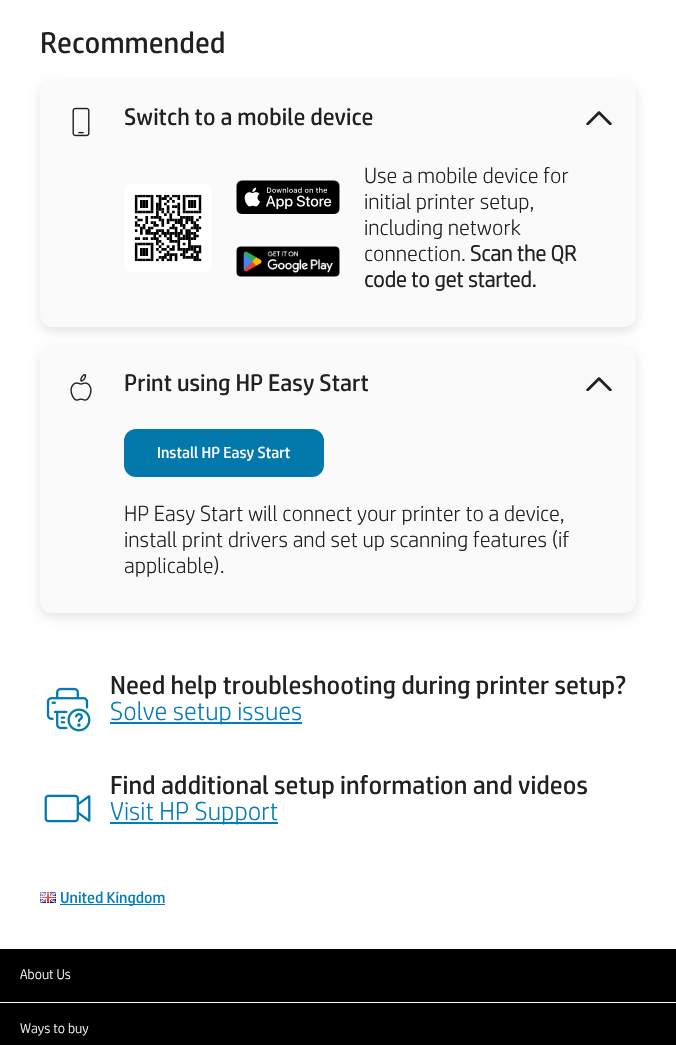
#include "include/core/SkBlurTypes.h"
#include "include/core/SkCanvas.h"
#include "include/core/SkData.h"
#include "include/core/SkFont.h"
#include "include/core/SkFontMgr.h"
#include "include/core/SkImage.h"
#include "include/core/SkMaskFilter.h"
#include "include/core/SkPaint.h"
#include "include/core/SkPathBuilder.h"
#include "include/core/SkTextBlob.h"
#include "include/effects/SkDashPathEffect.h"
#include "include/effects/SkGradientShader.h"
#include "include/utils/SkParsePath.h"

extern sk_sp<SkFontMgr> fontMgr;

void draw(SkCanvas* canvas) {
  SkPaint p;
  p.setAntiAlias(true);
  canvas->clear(SK_ColorWHITE);
  p.setColor(SkColorSetARGB(28, 0, 0, 0));
  p.setMaskFilter(SkMaskFilter::MakeBlur(kNormal_SkBlurStyle, 5.5f));
  canvas->drawRoundRect(SkRect::MakeLTRB(40, 85, 636, 331), 12, 12, p);
  p.setMaskFilter(nullptr);
  p.setColor(SkColorSetRGB(250, 250, 250));
  canvas->drawRoundRect(SkRect::MakeLTRB(40, 81, 636, 327), 12, 12, p);
  canvas->drawImageRect(SkImages::DeferredFromEncodedData(SkData::MakeFromFileName("images/1.png")), SkRect::MakeLTRB(72, 107, 90, 137), SkSamplingOptions());
  canvas->drawImageRect(SkImages::DeferredFromEncodedData(SkData::MakeFromFileName("images/2.png")), SkRect::MakeLTRB(586, 111, 612, 125), SkSamplingOptions());
  p.setColor(SK_ColorWHITE);
  canvas->drawRoundRect(SkRect::MakeLTRB(124, 184, 212, 272), 8, 8, p);
  canvas->drawImageRect(SkImages::DeferredFromEncodedData(SkData::MakeFromFileName("images/3.png")), SkRect::MakeLTRB(134, 194, 202, 262), SkSamplingOptions());
  canvas->drawImageRect(SkImages::DeferredFromEncodedData(SkData::MakeFromFileName("images/4.png")), SkRect::MakeLTRB(236, 180, 340, 214), SkSamplingOptions());
  canvas->drawImageRect(SkImages::DeferredFromEncodedData(SkData::MakeFromFileName("images/5.png")), SkRect::MakeLTRB(236, 246, 340, 277), SkSamplingOptions());
  p.setColor(SkColorSetARGB(28, 0, 0, 0));
  p.setMaskFilter(SkMaskFilter::MakeBlur(kNormal_SkBlurStyle, 5.5f));
  canvas->drawRoundRect(SkRect::MakeLTRB(40, 351, 636, 617), 12, 12, p);
  p.setMaskFilter(nullptr);
  p.setColor(SkColorSetRGB(250, 250, 250));
  canvas->drawRoundRect(SkRect::MakeLTRB(40, 347, 636, 613), 12, 12, p);
  canvas->drawImageRect(SkImages::DeferredFromEncodedData(SkData::MakeFromFileName("images/6.png")), SkRect::MakeLTRB(70, 374, 92, 401), SkSamplingOptions());
  canvas->drawImageRect(SkImages::DeferredFromEncodedData(SkData::MakeFromFileName("images/2.png")), SkRect::MakeLTRB(586, 377, 612, 391), SkSamplingOptions());
  p.setColor(SkColorSetRGB(2, 120, 171));
  canvas->drawRoundRect(SkRect::MakeLTRB(124, 429, 324, 477), 12, 12, p);
  canvas->drawImageRect(SkImages::DeferredFromEncodedData(SkData::MakeFromFileName("images/7.png")), SkRect::MakeLTRB(46, 687, 91, 732), SkSamplingOptions());
  p.setColor(SkColorSetRGB(0, 125, 186));
  canvas->drawRect(SkRect::MakeLTRB(110, 722, 302, 724), p);
  canvas->drawImageRect(SkImages::DeferredFromEncodedData(SkData::MakeFromFileName("images/8.png")), SkRect::MakeLTRB(44, 794, 91, 823), SkSamplingOptions());
  canvas->drawRect(SkRect::MakeLTRB(110, 822, 278, 824), p);
  canvas->drawImageRect(SkImages::DeferredFromEncodedData(SkData::MakeFromFileName("images/9.png")), SkRect::MakeLTRB(40, 892, 56, 903), SkSamplingOptions());
  canvas->drawRect(SkRect::MakeLTRB(60, 904, 165, 905), p);
  p.setColor(SK_ColorBLACK);
  canvas->drawRect(SkRect::MakeLTRB(0, 949, 676, 1045), p);
  p.setColor(SK_ColorWHITE);
  canvas->drawRect(SkRect::MakeLTRB(0, 1002, 676, 1003), p);
  SkFont font1(fontMgr->matchFamilyStyle("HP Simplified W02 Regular", SkFontStyle::Normal()), 30);
  font1.setSubpixel(true);
  p.setColor(SkColorSetRGB(33, 33, 33));
  canvas->drawString("Recommended", 40, 53, font1, p);
  SkFont font2(fontMgr->matchFamilyStyle("HP Simplified W02 Regular", SkFontStyle::Normal()), 24);
  font2.setSubpixel(true);
  canvas->drawString("Switch to a mobile device", 124, 125, font2, p);
  SkFont font3(fontMgr->matchFamilyStyle("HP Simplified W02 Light", SkFontStyle(300, SkFontStyle::kNormal_Width, SkFontStyle::kUpright_Slant)), 22);
  font3.setSubpixel(true);
  canvas->drawString("Use a mobile device for", 364, 183, font3, p);
  canvas->drawString("initial printer setup,", 364, 209, font3, p);
  canvas->drawString("including network", 364, 235, font3, p);
  canvas->drawString("connection.", 364, 261, font3, p);
  SkFont font4(fontMgr->matchFamilyStyle("HP Simplified W02 Light", SkFontStyle::Bold()), 22);
  font4.setSubpixel(true);
  canvas->drawString("Scan the QR", 470, 261, font4, p);
  canvas->drawString("code to get started.", 364, 287, font4, p);
  canvas->drawString("Print using HP Easy Start", 124, 391, font2, p);
  SkFont font5(fontMgr->matchFamilyStyle("HP Simplified W02 Regular", SkFontStyle::Normal()), 16);
  font5.setSubpixel(true);
  p.setColor(SK_ColorWHITE);
  canvas->drawString("Install HP Easy Start", 157, 458, font5, p);
  p.setColor(SkColorSetRGB(33, 33, 33));
  canvas->drawString("HP Easy Start will connect your printer to a device,", 124, 521, font3, p);
  canvas->drawString("install print drivers and set up scanning features (if", 124, 547, font3, p);
  canvas->drawString("applicable).", 124, 573, font3, p);
  SkFont font6(fontMgr->matchFamilyStyle("HP Simplified W02 Regular", SkFontStyle::Normal()), 26);
  font6.setSubpixel(true);
  canvas->drawString("Need help troubleshooting during printer setup?", 110, 694, font6, p);
  SkFont font7(fontMgr->matchFamilyStyle("HP Simplified W02 Light", SkFontStyle(300, SkFontStyle::kNormal_Width, SkFontStyle::kUpright_Slant)), 26);
  font7.setSubpixel(true);
  p.setColor(SkColorSetRGB(0, 125, 186));
  canvas->drawString("Solve setup issues", 110, 720, font7, p);
  p.setColor(SkColorSetRGB(33, 33, 33));
  canvas->drawString("Find additional setup information and videos", 110, 794, font6, p);
  p.setColor(SkColorSetRGB(0, 125, 186));
  canvas->drawString("Visit HP Support", 110, 820, font7, p);
  canvas->drawString("United Kingdom", 60, 903, font5, p);
  SkFont font8(fontMgr->matchFamilyStyle("HP Simplified W02 Light", SkFontStyle(300, SkFontStyle::kNormal_Width, SkFontStyle::kUpright_Slant)), 14);
  font8.setSubpixel(true);
  p.setColor(SK_ColorWHITE);
  canvas->drawString("About Us", 20, 979, font8, p);
  canvas->drawString("Ways to buy", 20, 1033, font8, p);
}
